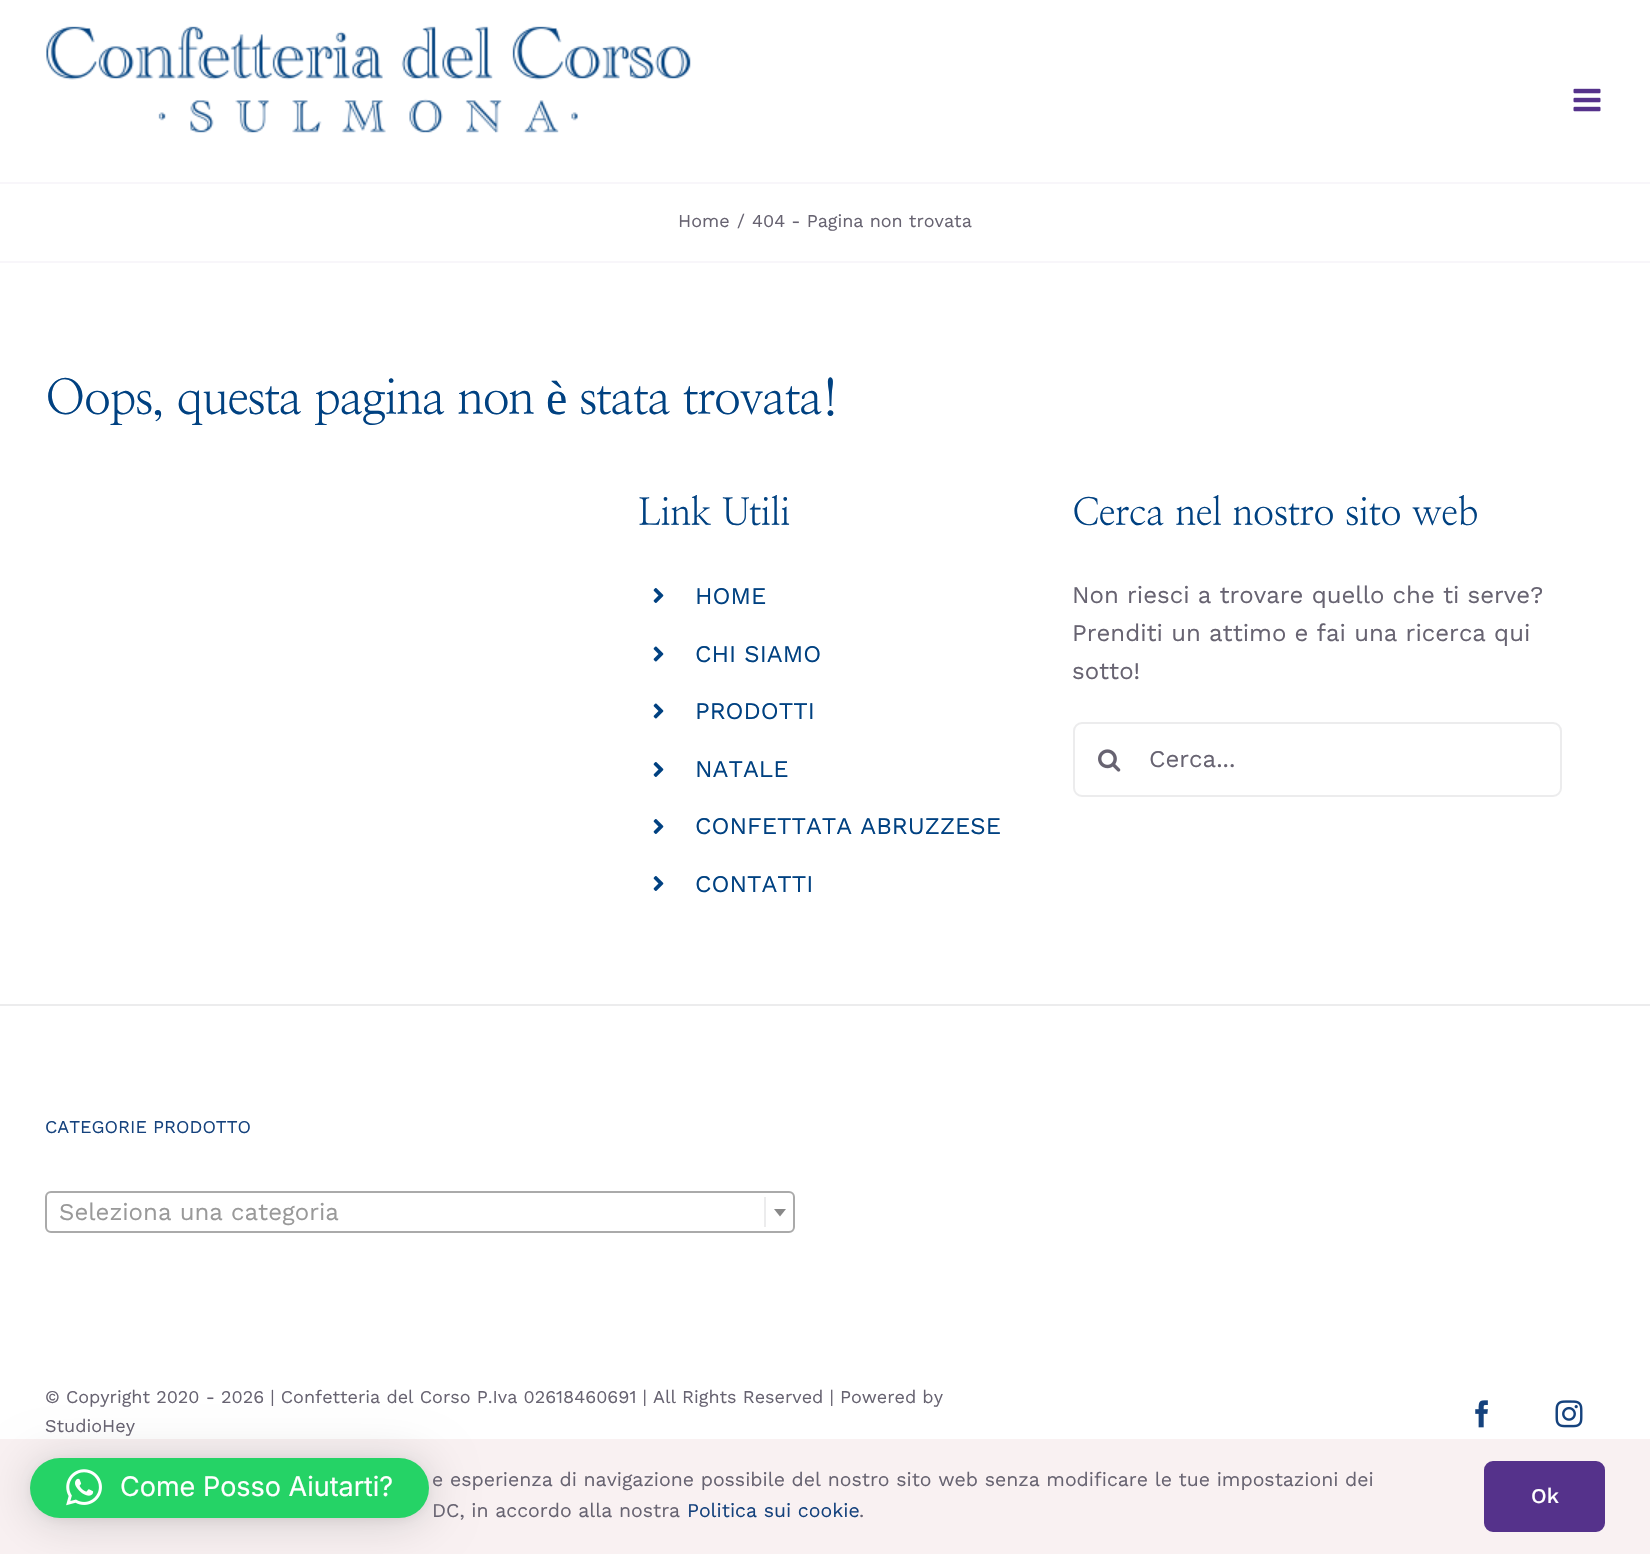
#include "include/core/SkBlurTypes.h"
#include "include/core/SkCanvas.h"
#include "include/core/SkData.h"
#include "include/core/SkFont.h"
#include "include/core/SkFontMgr.h"
#include "include/core/SkImage.h"
#include "include/core/SkMaskFilter.h"
#include "include/core/SkPaint.h"
#include "include/core/SkPathBuilder.h"
#include "include/core/SkTextBlob.h"
#include "include/effects/SkDashPathEffect.h"
#include "include/effects/SkGradientShader.h"
#include "include/utils/SkParsePath.h"

extern sk_sp<SkFontMgr> fontMgr;

void draw(SkCanvas* canvas) {
  SkPaint p;
  p.setAntiAlias(true);
  auto spacedText = [&](const char* s, float x, float y, const SkFont& font, const SkPaint& ink, float letter, float word) {
    std::vector<SkGlyphID> glyphs(font.countText(s, strlen(s), SkTextEncoding::kUTF8));
    std::vector<float> xs(glyphs.size());
    font.textToGlyphs(s, strlen(s), SkTextEncoding::kUTF8, glyphs);
    font.getXPos(glyphs, xs, x);
    float extra = 0;
    for (size_t i = 0; i < glyphs.size(); i++) {
      xs[i] += extra;
      extra += letter + word * (glyphs[i] == font.unicharToGlyph(' '));
    }
    canvas->drawTextBlob(SkTextBlob::MakeFromPosHGlyphs(glyphs, xs, y, font), 0, 0, ink);
  };
  canvas->clear(SK_ColorWHITE);
  canvas->drawImageRect(SkImages::DeferredFromEncodedData(SkData::MakeFromFileName("images/1.png")), SkRect::MakeLTRB(46, 26, 691, 133), SkSamplingOptions());
  canvas->drawImageRect(SkImages::DeferredFromEncodedData(SkData::MakeFromFileName("images/2.png")), SkRect::MakeLTRB(1573, 88, 1601, 112), SkSamplingOptions());
  p.setColor(SkColorSetRGB(248, 246, 250));
  canvas->drawRect(SkRect::MakeLTRB(0, 182, 1650, 184), p);
  canvas->drawRect(SkRect::MakeLTRB(0, 261, 1650, 263), p);
  canvas->drawImageRect(SkImages::DeferredFromEncodedData(SkData::MakeFromFileName("images/3.png")), SkRect::MakeLTRB(653, 588, 664, 603), SkSamplingOptions());
  canvas->drawImageRect(SkImages::DeferredFromEncodedData(SkData::MakeFromFileName("images/4.png")), SkRect::MakeLTRB(653, 646, 664, 662), SkSamplingOptions());
  canvas->drawImageRect(SkImages::DeferredFromEncodedData(SkData::MakeFromFileName("images/4.png")), SkRect::MakeLTRB(653, 703, 664, 719), SkSamplingOptions());
  canvas->drawImageRect(SkImages::DeferredFromEncodedData(SkData::MakeFromFileName("images/3.png")), SkRect::MakeLTRB(653, 762, 664, 777), SkSamplingOptions());
  canvas->drawImageRect(SkImages::DeferredFromEncodedData(SkData::MakeFromFileName("images/3.png")), SkRect::MakeLTRB(653, 819, 664, 834), SkSamplingOptions());
  canvas->drawImageRect(SkImages::DeferredFromEncodedData(SkData::MakeFromFileName("images/3.png")), SkRect::MakeLTRB(653, 876, 664, 891), SkSamplingOptions());
  p.setStyle(SkPaint::kStroke_Style);
  p.setStrokeWidth(2);
  p.setColor(SkColorSetRGB(236, 236, 237));
  canvas->drawRoundRect(SkRect::MakeLTRB(1074, 723, 1561, 796), 8, 8, p);
  canvas->drawImageRect(SkImages::DeferredFromEncodedData(SkData::MakeFromFileName("images/5.png")), SkRect::MakeLTRB(1098, 749, 1121, 772), SkSamplingOptions());
  p.setStyle(SkPaint::kFill_Style);
  canvas->drawRect(SkRect::MakeLTRB(0, 1004, 1650, 1006), p);
  p.setStyle(SkPaint::kStroke_Style);
  p.setColor(SkColorSetRGB(170, 170, 170));
  canvas->drawRoundRect(SkRect::MakeLTRB(46, 1192, 794, 1232), 5, 5, p);
  p.setStyle(SkPaint::kFill_Style);
  p.setColor(SkColorSetRGB(236, 236, 237));
  canvas->drawRect(SkRect::MakeLTRB(764, 1197, 766, 1227), p);
  p.setColor(SkColorSetRGB(136, 136, 136));
  canvas->drawPath(SkPathBuilder().moveTo(774, 1209).lineTo(786, 1209).lineTo(780, 1216.5f).close().detach(), p);
  canvas->drawImageRect(SkImages::DeferredFromEncodedData(SkData::MakeFromFileName("images/6.png")), SkRect::MakeLTRB(1475, 1400, 1488, 1428), SkSamplingOptions());
  canvas->drawImageRect(SkImages::DeferredFromEncodedData(SkData::MakeFromFileName("images/7.png")), SkRect::MakeLTRB(1555, 1400, 1583, 1428), SkSamplingOptions());
  p.setColor(SkColorSetRGB(249, 241, 242));
  canvas->drawRect(SkRect::MakeLTRB(0, 1439, 1650, 1554), p);
  p.setColor(SkColorSetARGB(41, 0, 0, 0));
  p.setMaskFilter(SkMaskFilter::MakeBlur(kNormal_SkBlurStyle, 24));
  canvas->drawRoundRect(SkRect::MakeLTRB(30, 1461, 429, 1521), 30, 30, p);
  p.setMaskFilter(nullptr);
  p.setColor(SkColorSetARGB(15, 0, 0, 0));
  p.setMaskFilter(SkMaskFilter::MakeBlur(kNormal_SkBlurStyle, 4.5f));
  canvas->drawRoundRect(SkRect::MakeLTRB(30, 1460, 429, 1520), 30, 30, p);
  p.setMaskFilter(nullptr);
  p.setColor(SkColorSetRGB(37, 211, 102));
  canvas->drawRoundRect(SkRect::MakeLTRB(30, 1458, 429, 1518), 30, 30, p);
  canvas->drawImageRect(SkImages::DeferredFromEncodedData(SkData::MakeFromFileName("images/8.png")), SkRect::MakeLTRB(66, 1469, 102, 1506), SkSamplingOptions());
  p.setColor(SkColorSetRGB(85, 50, 139));
  canvas->drawRoundRect(SkRect::MakeLTRB(1485.5f, 1462.5f, 1603.5f, 1530.5f), 7.5f, 7.5f, p);
  p.setStyle(SkPaint::kStroke_Style);
  p.setStrokeWidth(3);
  canvas->drawRoundRect(SkRect::MakeLTRB(1485.5f, 1462.5f, 1603.5f, 1530.5f), 7.5f, 7.5f, p);
  SkFont font1(fontMgr->matchFamilyStyle("Work Sans", SkFontStyle::Normal()), 18);
  font1.setSubpixel(true);
  p.setStyle(SkPaint::kFill_Style);
  p.setColor(SkColorSetRGB(103, 99, 113));
  canvas->drawString("Home", 678, 227, font1, p);
  canvas->drawString("/", 737, 227, font1, p);
  canvas->drawString("404 - Pagina non trovata", 752, 227, font1, p);
  SkFont font2(fontMgr->matchFamilyStyle("NanumMyeongjo", SkFontStyle::Normal()), 48);
  font2.setSubpixel(true);
  p.setColor(SkColorSetRGB(0, 65, 129));
  spacedText("Oops, questa pagina non", 45, 414, font2, p, -1.5f, 0);
  SkFont font3(fontMgr->matchFamilyStyle("Liberation Serif", SkFontStyle::Normal()), 48);
  font3.setSubpixel(true);
  spacedText("è", 546, 414, font3, p, -1.5f, 0);
  spacedText("stata trovata!", 579, 414, font2, p, -1.5f, 0);
  SkFont font4(fontMgr->matchFamilyStyle("NanumMyeongjo", SkFontStyle::Normal()), 37.5f);
  font4.setSubpixel(true);
  spacedText("Link Utili", 638, 525, font4, p, -0.45f, 0);
  SkFont font5(fontMgr->matchFamilyStyle("Work Sans", SkFontStyle::Normal()), 24);
  font5.setSubpixel(true);
  canvas->drawString("HOME", 695, 604, font5, p);
  canvas->drawString("CHI SIAMO", 695, 662, font5, p);
  canvas->drawString("PRODOTTI", 695, 719, font5, p);
  canvas->drawString("NATALE", 695, 777, font5, p);
  canvas->drawString("CONFETTATA ABRUZZESE", 695, 834, font5, p);
  canvas->drawString("CONTATTI", 695, 892, font5, p);
  spacedText("Cerca nel nostro sito web", 1072, 525, font4, p, -0.45f, 0);
  p.setColor(SkColorSetRGB(103, 99, 113));
  canvas->drawString("Non riesci a trovare quello che ti serve?", 1072, 603, font5, p);
  canvas->drawString("Prenditi un attimo e fai una ricerca qui", 1072, 641, font5, p);
  canvas->drawString("sotto!", 1072, 679, font5, p);
  canvas->drawString("Cerca...", 1149, 767, font5, p);
  p.setColor(SkColorSetRGB(21, 66, 125));
  canvas->drawString("CATEGORIE PRODOTTO", 45, 1133, font1, p);
  p.setColor(SkColorSetRGB(153, 153, 153));
  canvas->drawString("Seleziona una categoria", 59, 1220, font5, p);
  p.setColor(SkColorSetRGB(103, 99, 113));
  canvas->drawString("© Copyright 2020 - 2026 | Confetteria del Corso P.Iva 02618460691 | All Rights Reserved | Powered by", 45, 1403, font1, p);
  canvas->drawString("StudioHey", 45, 1432, font1, p);
  SkFont font6(fontMgr->matchFamilyStyle("Inter", SkFontStyle::Normal()), 27);
  font6.setSubpixel(true);
  p.setColor(SK_ColorWHITE);
  canvas->drawString("Come Posso Aiutarti?", 120, 1496, font6, p);
  SkFont font7(fontMgr->matchFamilyStyle("Work Sans", SkFontStyle::Normal()), 19.5f);
  font7.setSubpixel(true);
  p.setColor(SkColorSetRGB(103, 99, 113));
  canvas->drawString("e esperienza di navigazione possibile del nostro sito web senza modificare le tue impostazioni dei", 432, 1486, font7, p);
  canvas->drawString("DC, in accordo alla nostra", 432, 1517, font7, p);
  p.setColor(SkColorSetRGB(21, 66, 125));
  canvas->drawString("Politica sui cookie", 687, 1517, font7, p);
  p.setColor(SkColorSetRGB(103, 99, 113));
  canvas->drawString(".", 859, 1517, font7, p);
  SkFont font8(fontMgr->matchFamilyStyle("Work Sans", SkFontStyle(500, SkFontStyle::kNormal_Width, SkFontStyle::kUpright_Slant)), 21);
  font8.setSubpixel(true);
  p.setColor(SK_ColorWHITE);
  canvas->drawString("Ok", 1531, 1503, font8, p);
}
